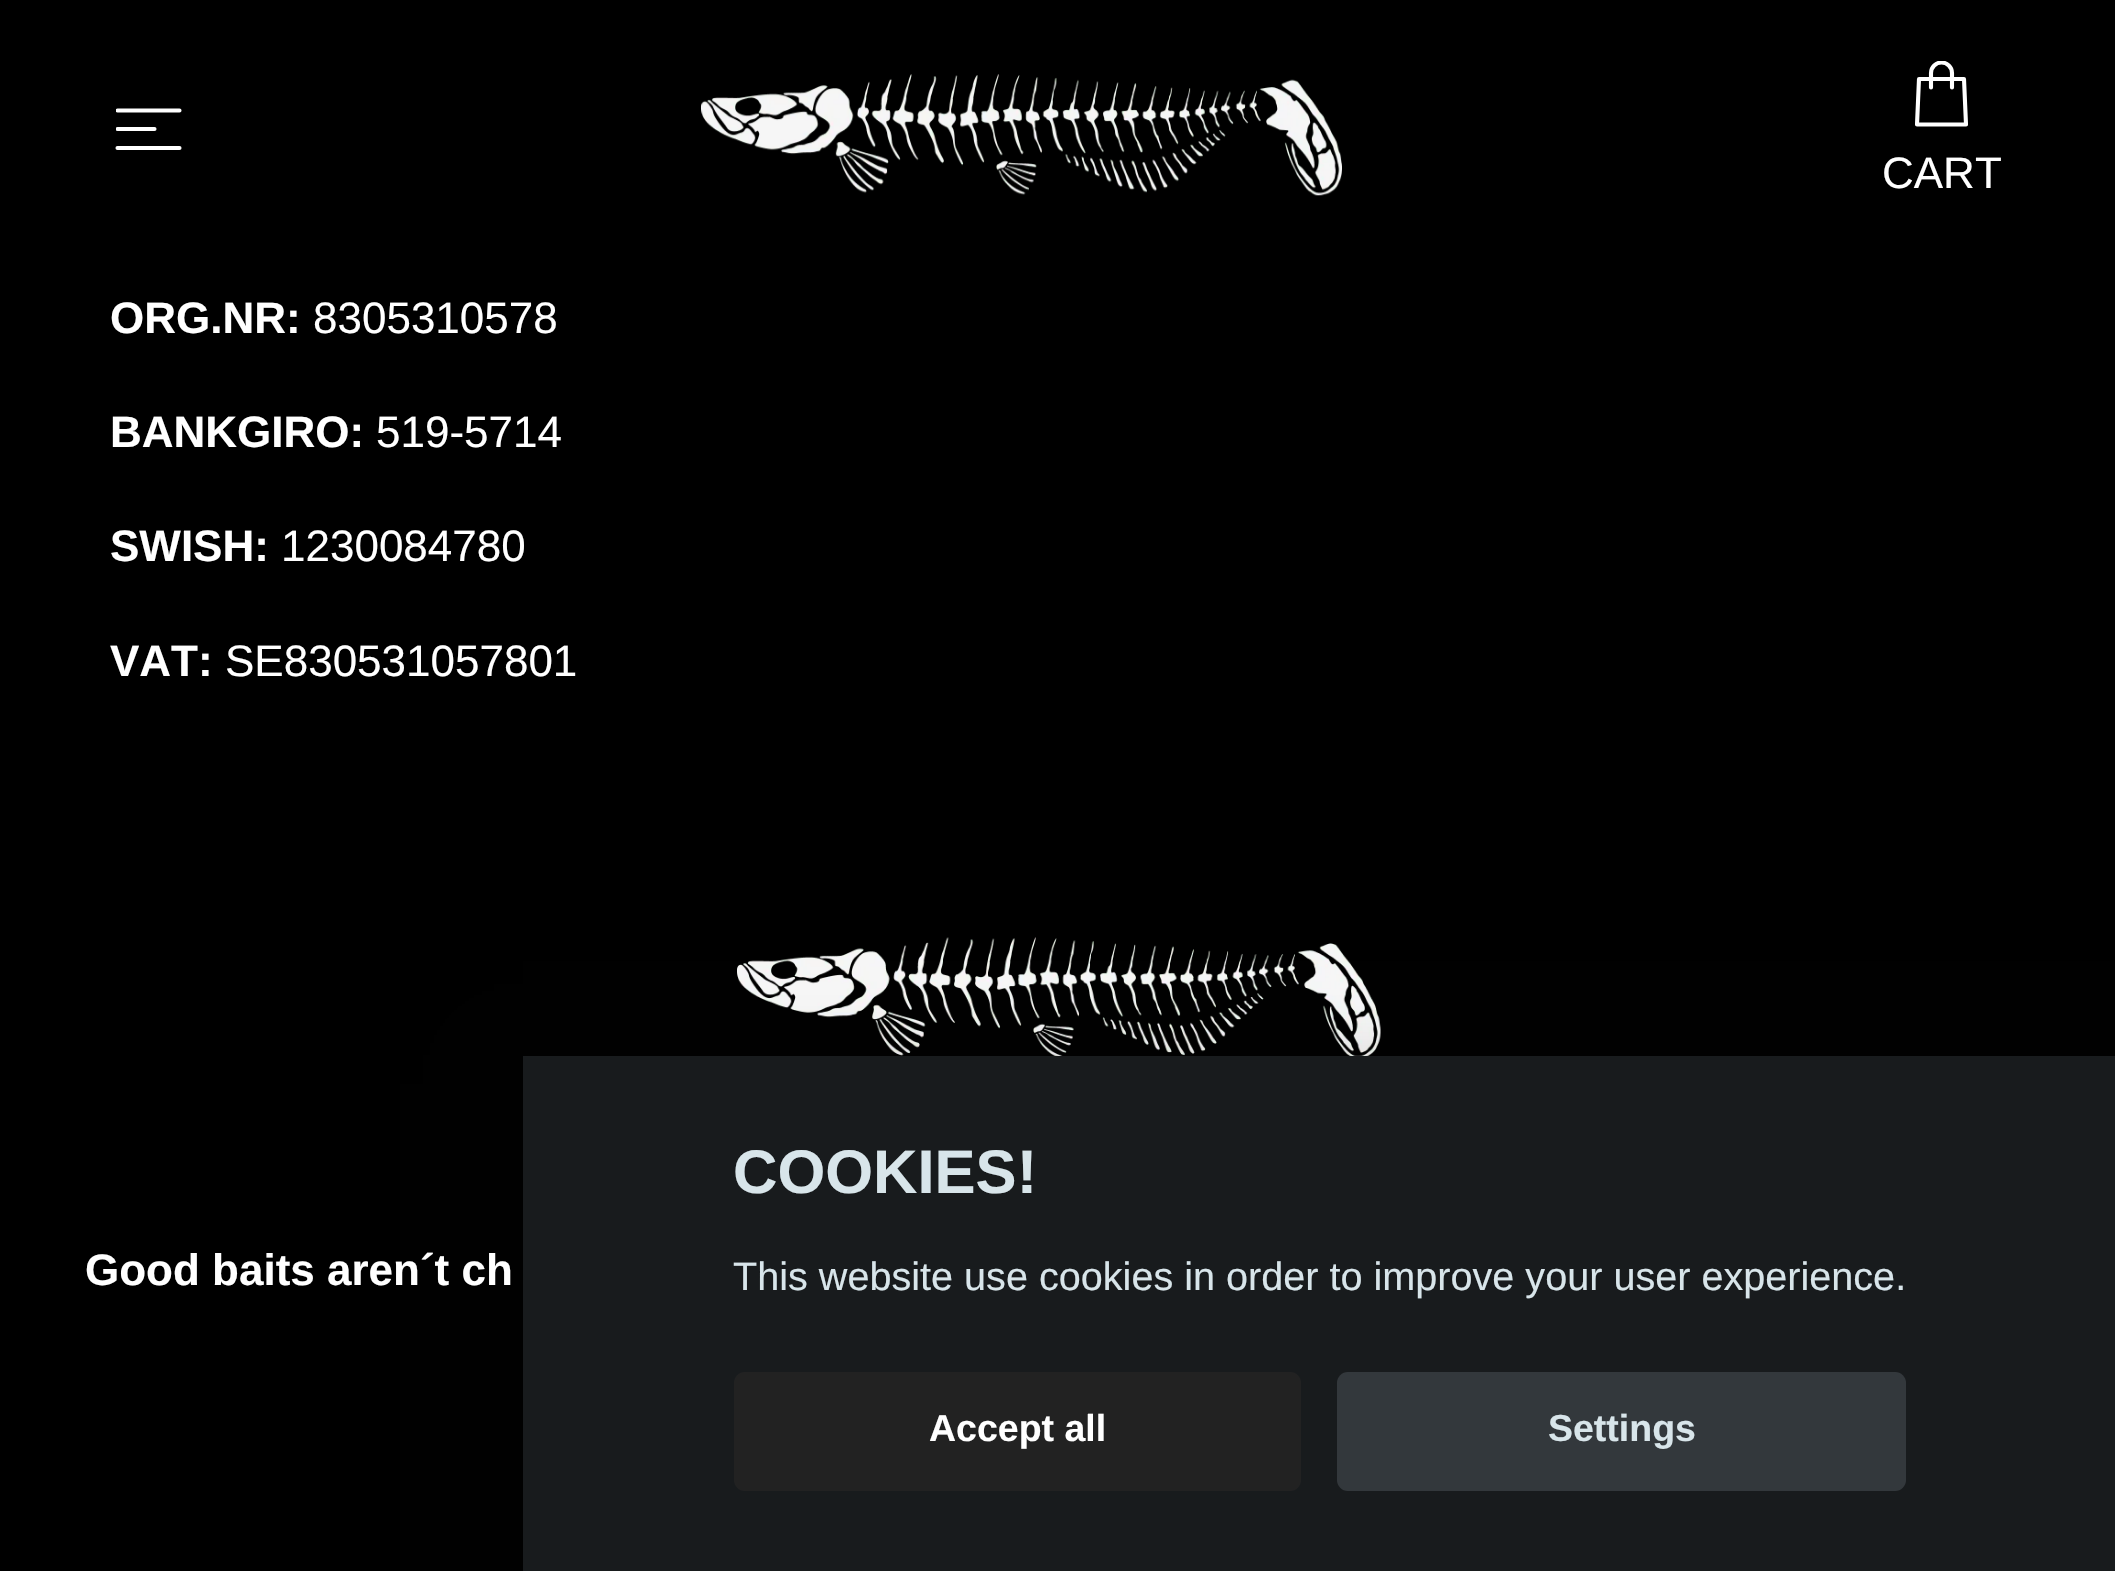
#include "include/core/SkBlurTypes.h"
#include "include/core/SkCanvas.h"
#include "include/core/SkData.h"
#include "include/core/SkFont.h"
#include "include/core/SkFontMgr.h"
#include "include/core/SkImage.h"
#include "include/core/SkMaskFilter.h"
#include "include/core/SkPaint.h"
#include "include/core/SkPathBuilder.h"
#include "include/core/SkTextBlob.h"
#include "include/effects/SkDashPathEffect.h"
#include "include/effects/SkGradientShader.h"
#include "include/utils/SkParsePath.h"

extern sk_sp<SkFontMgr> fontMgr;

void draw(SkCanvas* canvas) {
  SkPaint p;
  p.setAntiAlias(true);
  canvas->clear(SK_ColorBLACK);
  canvas->save();
  canvas->clipRect(SkRect::MakeLTRB(116, 96, 182, 162));
  p.setStyle(SkPaint::kStroke_Style);
  p.setStrokeWidth(4.1f);
  p.setStrokeCap(SkPaint::kRound_Cap);
  p.setStrokeJoin(SkPaint::kRound_Join);
  p.setColor(SK_ColorWHITE);
  canvas->drawPath(SkPathBuilder().moveTo(117.5f, 110.5f).lineTo(179.5f, 110.5f).moveTo(117.5f, 129).lineTo(154.5f, 129).detach(), p);
  canvas->restore();
  canvas->drawPath(SkPathBuilder().moveTo(117.5f, 148).lineTo(179.5f, 148).detach(), p);
  canvas->drawImageRect(SkImages::DeferredFromEncodedData(SkData::MakeFromFileName("images/1.png")), SkRect::MakeLTRB(701, 74, 1342, 196), SkSamplingOptions());
  canvas->drawPath(SkPathBuilder().moveTo(1966, 124.5f).lineTo(1917, 124.5f).lineTo(1919, 79).lineTo(1964, 79).close().detach(), p);
  canvas->save();
  canvas->clipRect(SkRect::MakeLTRB(1909, 61, 1975, 127));
  canvas->drawPath(SkPathBuilder().moveTo(1931, 87.5f).lineTo(1931, 73).cubicTo(1931, 67, 1936, 62.5f, 1941.5f, 62.5f).cubicTo(1947, 62.5f, 1952, 67, 1952, 73).lineTo(1952, 87.5f).detach(), p);
  canvas->restore();
  canvas->drawImageRect(SkImages::DeferredFromEncodedData(SkData::MakeFromFileName("images/2.png")), SkRect::MakeLTRB(737, 937, 1381, 1056), SkSamplingOptions());
  p.setStyle(SkPaint::kFill_Style);
  p.setColor(SkColorSetARGB(71, 2, 2, 3));
  p.setMaskFilter(SkMaskFilter::MakeBlur(kNormal_SkBlurStyle, 41));
  canvas->drawRect(SkRect::MakeLTRB(523, 1084, 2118, 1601), p);
  p.setMaskFilter(nullptr);
  p.setColor(SkColorSetRGB(24, 27, 29));
  canvas->drawRect(SkRect::MakeLTRB(523, 1056, 2115, 1571), p);
  p.setColor(SkColorSetRGB(34, 34, 34));
  canvas->drawRoundRect(SkRect::MakeLTRB(734, 1372, 1301, 1491), 11, 11, p);
  p.setColor(SkColorSetRGB(51, 56, 60));
  canvas->drawRoundRect(SkRect::MakeLTRB(1337, 1372, 1906, 1491), 11, 11, p);
  SkFont font1(fontMgr->matchFamilyStyle("Liberation Sans", SkFontStyle::Normal()), 44);
  font1.setSubpixel(true);
  p.setColor(SK_ColorWHITE);
  canvas->drawString("CART", 1882, 188, font1, p);
  SkFont font2(fontMgr->matchFamilyStyle("Liberation Sans", SkFontStyle::Bold()), 44);
  font2.setSubpixel(true);
  canvas->drawString("ORG.NR:", 110, 333, font2, p);
  canvas->drawString("8305310578", 313, 333, font1, p);
  canvas->drawString("BANKGIRO:", 110, 447, font2, p);
  canvas->drawString("519-5714", 376, 447, font1, p);
  canvas->drawString("SWISH:", 110, 561, font2, p);
  canvas->drawString("1230084780", 281, 561, font1, p);
  canvas->drawString("VAT:", 110, 676, font2, p);
  canvas->drawString("SE830531057801", 225, 676, font1, p);
  canvas->drawString("Good baits aren´t ch", 85, 1285, font2, p);
  SkFont font3(fontMgr->matchFamilyStyle("Liberation Sans", SkFontStyle::Bold()), 61.5f);
  font3.setSubpixel(true);
  p.setColor(SkColorSetRGB(216, 229, 234));
  canvas->drawString("COOKIES!", 733, 1193, font3, p);
  SkFont font4(fontMgr->matchFamilyStyle("Liberation Sans", SkFontStyle::Normal()), 39.6f);
  font4.setSubpixel(true);
  canvas->drawString("This website use cookies in order to improve your user experience.", 733, 1290, font4, p);
  SkFont font5(fontMgr->matchFamilyStyle("Liberation Sans", SkFontStyle::Bold()), 37.5f);
  font5.setSubpixel(true);
  p.setColor(SK_ColorWHITE);
  canvas->drawString("Accept all", 929, 1441, font5, p);
  p.setColor(SkColorSetRGB(216, 229, 234));
  canvas->drawString("Settings", 1548, 1441, font5, p);
}
